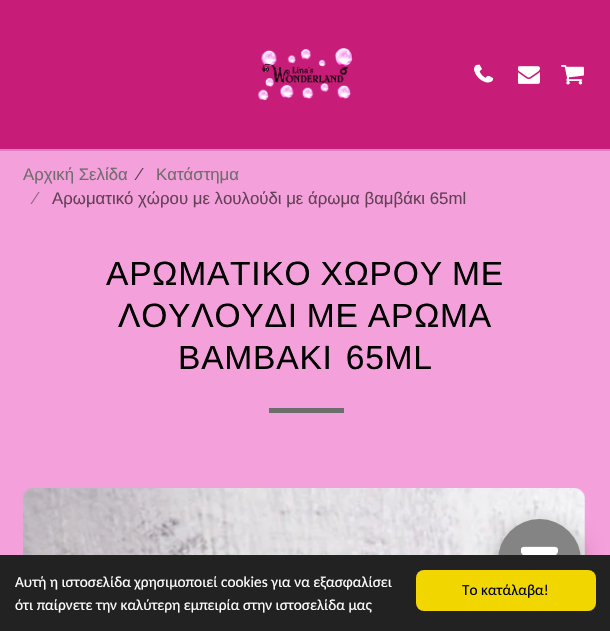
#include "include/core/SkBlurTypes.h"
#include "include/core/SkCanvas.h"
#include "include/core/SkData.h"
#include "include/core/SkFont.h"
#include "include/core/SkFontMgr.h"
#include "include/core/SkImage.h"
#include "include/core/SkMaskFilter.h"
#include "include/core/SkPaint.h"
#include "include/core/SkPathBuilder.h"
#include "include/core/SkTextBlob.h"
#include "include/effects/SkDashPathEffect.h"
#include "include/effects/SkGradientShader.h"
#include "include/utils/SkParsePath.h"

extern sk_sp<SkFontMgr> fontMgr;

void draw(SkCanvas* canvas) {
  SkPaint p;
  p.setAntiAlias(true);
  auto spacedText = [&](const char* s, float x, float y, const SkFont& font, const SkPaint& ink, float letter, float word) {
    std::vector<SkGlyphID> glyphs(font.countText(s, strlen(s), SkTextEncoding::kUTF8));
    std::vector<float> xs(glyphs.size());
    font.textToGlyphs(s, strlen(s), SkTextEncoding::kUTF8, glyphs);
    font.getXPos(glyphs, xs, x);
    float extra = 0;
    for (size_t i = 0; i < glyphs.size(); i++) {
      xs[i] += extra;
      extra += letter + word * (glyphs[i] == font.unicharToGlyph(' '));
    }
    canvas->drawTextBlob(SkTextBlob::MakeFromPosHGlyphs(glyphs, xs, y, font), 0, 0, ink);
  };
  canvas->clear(SkColorSetRGB(244, 160, 218));
  p.setColor(SkColorSetRGB(199, 28, 119));
  canvas->drawRect(SkRect::MakeLTRB(0, 0, 610, 149), p);
  p.setColor(SkColorSetRGB(223, 128, 197));
  canvas->drawRect(SkRect::MakeLTRB(0, 149, 610, 151), p);
  canvas->drawImageRect(SkImages::DeferredFromEncodedData(SkData::MakeFromFileName("images/1.png")), SkRect::MakeLTRB(257, 48, 353, 101), SkSamplingOptions());
  canvas->drawImageRect(SkImages::DeferredFromEncodedData(SkData::MakeFromFileName("images/2.png")), SkRect::MakeLTRB(476, 64, 494, 83), SkSamplingOptions());
  canvas->drawImageRect(SkImages::DeferredFromEncodedData(SkData::MakeFromFileName("images/3.png")), SkRect::MakeLTRB(474, 64, 491, 83), SkSamplingOptions());
  canvas->drawImageRect(SkImages::DeferredFromEncodedData(SkData::MakeFromFileName("images/4.png")), SkRect::MakeLTRB(518, 66, 540, 84), SkSamplingOptions());
  canvas->drawImageRect(SkImages::DeferredFromEncodedData(SkData::MakeFromFileName("images/5.png")), SkRect::MakeLTRB(561, 65, 584, 85), SkSamplingOptions());
  p.setColor(SkColorSetRGB(110, 109, 109));
  canvas->drawRect(SkRect::MakeLTRB(269, 408, 344, 413), p);
  canvas->drawImageRect(SkImages::DeferredFromEncodedData(SkData::MakeFromFileName("images/6.png")), SkRect::MakeLTRB(23, 488, 585, 555), SkSamplingOptions());
  p.setColor(SkColorSetARGB(89, 0, 0, 0));
  p.setMaskFilter(SkMaskFilter::MakeBlur(kNormal_SkBlurStyle, 11));
  canvas->drawRoundRect(SkRect::MakeLTRB(498, 527, 581, 609), 41, 41, p);
  p.setMaskFilter(nullptr);
  p.setColor(SkColorSetRGB(132, 132, 132));
  canvas->drawCircle(539.5f, 560.5f, 41.5f, p);
  canvas->drawImageRect(SkImages::DeferredFromEncodedData(SkData::MakeFromFileName("images/7.png")), SkRect::MakeLTRB(521, 546, 558, 555), SkSamplingOptions());
  p.setColor(SkColorSetRGB(34, 34, 34));
  canvas->drawRect(SkRect::MakeLTRB(0, 555, 610, 631), p);
  p.setColor(SkColorSetRGB(241, 214, 0));
  canvas->drawRoundRect(SkRect::MakeLTRB(416, 570, 596, 611), 8, 8, p);
  SkFont font1(fontMgr->matchFamilyStyle("Liberation Sans", SkFontStyle::Normal()), 16.8f);
  font1.setSubpixel(true);
  p.setColor(SkColorSetRGB(110, 109, 109));
  canvas->drawString("Αρχική Σελίδα", 23, 180, font1, p);
  SkFont font2(fontMgr->matchFamilyStyle("Raleway", SkFontStyle::Normal()), 16.8f);
  font2.setSubpixel(true);
  p.setColor(SkColorSetRGB(98, 64, 87));
  canvas->drawString("/", 134, 180, font2, p);
  p.setColor(SkColorSetRGB(110, 109, 109));
  canvas->drawString("Κατάστημα", 156, 180, font1, p);
  p.setColor(SkColorSetRGB(156, 102, 140));
  canvas->drawString("/", 30, 204, font2, p);
  p.setColor(SkColorSetRGB(98, 64, 87));
  canvas->drawString("Αρωματικό χώρου με λουλούδι με άρωμα βαμβάκι 65ml", 52, 204, font1, p);
  SkFont font3(fontMgr->matchFamilyStyle("Liberation Sans", SkFontStyle::Normal()), 33.6f);
  font3.setSubpixel(true);
  p.setColor(SK_ColorBLACK);
  spacedText("ΑΡΩΜΑΤΙΚΟ ΧΩΡΟΥ ΜΕ", 106, 285, font3, p, 0.75f, -1);
  spacedText("ΛΟΥΛΟΥΔΙ ΜΕ ΑΡΩΜΑ", 118, 327, font3, p, 0.75f, -1);
  spacedText("ΒΑΜΒΑΚΙ 65ML", 178, 369, font3, p, 0.75f, 3);
  SkFont font4(fontMgr->matchFamilyStyle("Carlito", SkFontStyle::Normal()), 15.3f);
  font4.setSubpixel(true);
  p.setColor(SK_ColorWHITE);
  canvas->drawString("Αυτή η ιστοσελίδα χρησιμοποιεί cookies για να εξασφαλίσει", 15, 587, font4, p);
  canvas->drawString("ότι παίρνετε την καλύτερη εμπειρία στην ιστοσελίδα μας", 15, 610, font4, p);
  p.setColor(SK_ColorBLACK);
  canvas->drawString("Το κατάλαβα!", 462, 595, font4, p);
}
